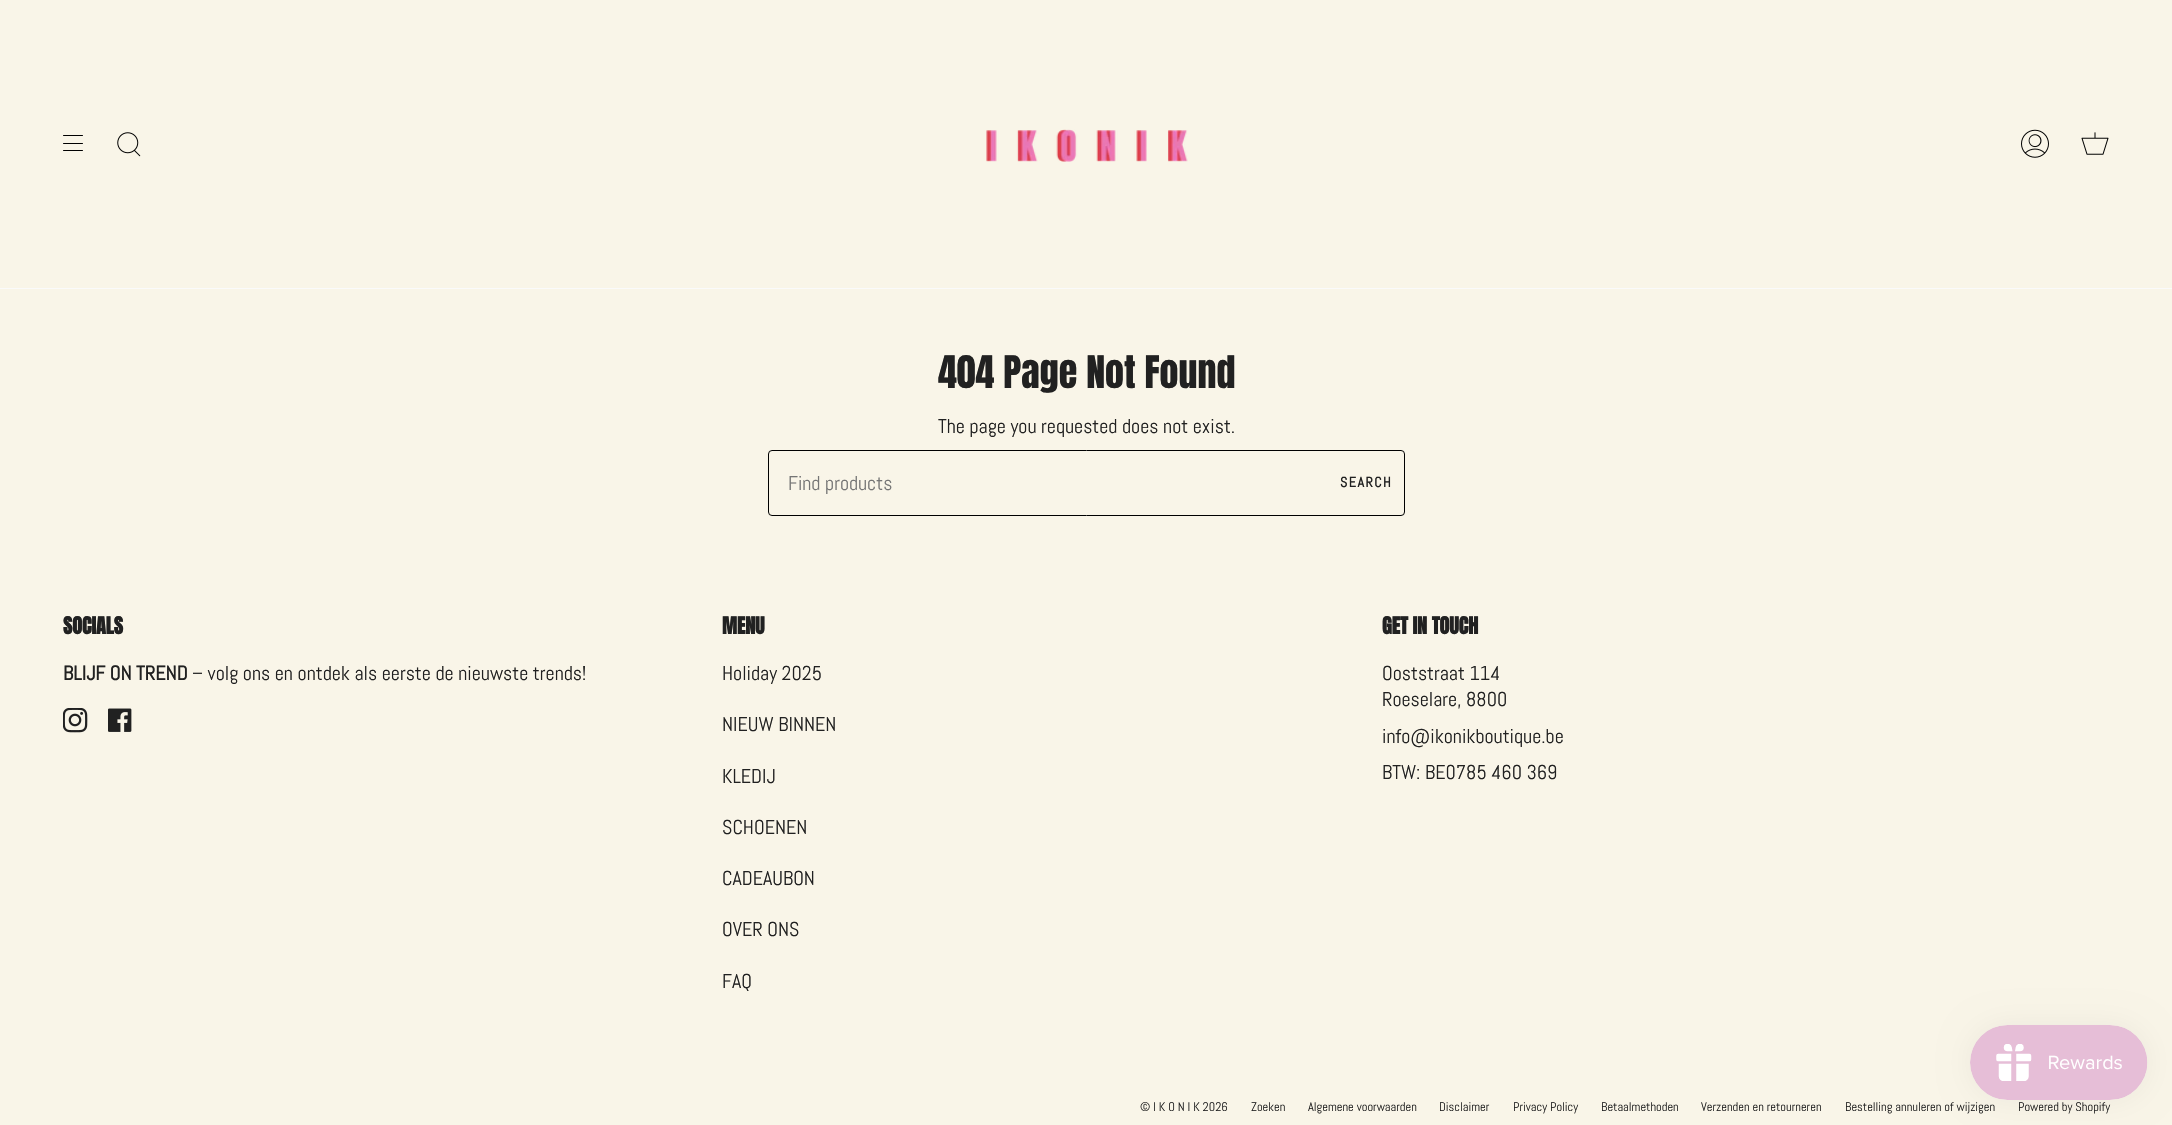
#include "include/core/SkBlurTypes.h"
#include "include/core/SkCanvas.h"
#include "include/core/SkData.h"
#include "include/core/SkFont.h"
#include "include/core/SkFontMgr.h"
#include "include/core/SkImage.h"
#include "include/core/SkMaskFilter.h"
#include "include/core/SkPaint.h"
#include "include/core/SkPathBuilder.h"
#include "include/core/SkTextBlob.h"
#include "include/effects/SkDashPathEffect.h"
#include "include/effects/SkGradientShader.h"
#include "include/utils/SkParsePath.h"

extern sk_sp<SkFontMgr> fontMgr;

void draw(SkCanvas* canvas) {
  SkPaint p;
  p.setAntiAlias(true);
  auto spacedText = [&](const char* s, float x, float y, const SkFont& font, const SkPaint& ink, float letter, float word) {
    std::vector<SkGlyphID> glyphs(font.countText(s, strlen(s), SkTextEncoding::kUTF8));
    std::vector<float> xs(glyphs.size());
    font.textToGlyphs(s, strlen(s), SkTextEncoding::kUTF8, glyphs);
    font.getXPos(glyphs, xs, x);
    float extra = 0;
    for (size_t i = 0; i < glyphs.size(); i++) {
      xs[i] += extra;
      extra += letter + word * (glyphs[i] == font.unicharToGlyph(' '));
    }
    canvas->drawTextBlob(SkTextBlob::MakeFromPosHGlyphs(glyphs, xs, y, font), 0, 0, ink);
  };
  canvas->clear(SkColorSetRGB(249, 245, 232));
  p.setColor(SkColorSetRGB(250, 250, 250));
  canvas->drawRect(SkRect::MakeLTRB(0, 288, 2172, 289), p);
  p.setColor(SK_ColorBLACK);
  canvas->drawRoundRect(SkRect::MakeLTRB(63, 135, 83, 136), 0.5f, 0.5f, p);
  canvas->drawRoundRect(SkRect::MakeLTRB(63, 143, 83, 144), 0.5f, 0.5f, p);
  canvas->drawRoundRect(SkRect::MakeLTRB(63, 150, 83, 151), 0.5f, 0.5f, p);
  canvas->drawImageRect(SkImages::DeferredFromEncodedData(SkData::MakeFromFileName("images/1.png")), SkRect::MakeLTRB(117, 132, 141, 157), SkSamplingOptions());
  canvas->drawImageRect(SkImages::DeferredFromEncodedData(SkData::MakeFromFileName("images/2.png")), SkRect::MakeLTRB(986, 129, 1188, 162), SkSamplingOptions());
  canvas->drawImageRect(SkImages::DeferredFromEncodedData(SkData::MakeFromFileName("images/3.png")), SkRect::MakeLTRB(2021, 129, 2049, 158), SkSamplingOptions());
  canvas->drawImageRect(SkImages::DeferredFromEncodedData(SkData::MakeFromFileName("images/4.png")), SkRect::MakeLTRB(2081, 132, 2109, 155), SkSamplingOptions());
  p.setStyle(SkPaint::kStroke_Style);
  p.setStrokeWidth(1);
  canvas->drawRoundRect(SkRect::MakeLTRB(768.5f, 450.5f, 1404.5f, 515.5f), 3.5f, 3.5f, p);
  canvas->drawImageRect(SkImages::DeferredFromEncodedData(SkData::MakeFromFileName("images/5.png")), SkRect::MakeLTRB(63, 708, 88, 733), SkSamplingOptions());
  canvas->drawImageRect(SkImages::DeferredFromEncodedData(SkData::MakeFromFileName("images/6.png")), SkRect::MakeLTRB(108, 708, 132, 732), SkSamplingOptions());
  p.setStyle(SkPaint::kFill_Style);
  p.setColor(SkColorSetARGB(13, 0, 0, 0));
  p.setMaskFilter(SkMaskFilter::MakeBlur(kNormal_SkBlurStyle, 15.5f));
  canvas->drawRoundRect(SkRect::MakeLTRB(1970, 1025, 2148, 1100), 37.5f, 37.5f, p);
  p.setMaskFilter(nullptr);
  canvas->drawImageRect(SkImages::DeferredFromEncodedData(SkData::MakeFromFileName("images/7.png")), SkRect::MakeLTRB(1970, 1025, 2148, 1100), SkSamplingOptions());
  SkFont font1(fontMgr->matchFamilyStyle("Anton", SkFontStyle::Normal()), 38);
  font1.setSubpixel(true);
  p.setColor(SkColorSetRGB(33, 33, 33));
  canvas->drawString("404 Page Not Found", 938, 388, font1, p);
  SkFont font2(fontMgr->matchFamilyStyle("Abel", SkFontStyle::Normal()), 20);
  font2.setSubpixel(true);
  canvas->drawString("The page you requested does not exist.", 938, 433, font2, p);
  p.setColor(SkColorSetRGB(117, 117, 117));
  canvas->drawString("Find products", 788, 490, font2, p);
  SkFont font3(fontMgr->matchFamilyStyle("Abel", SkFontStyle::Bold()), 14);
  font3.setSubpixel(true);
  p.setColor(SkColorSetRGB(33, 33, 33));
  spacedText("SEARCH", 1340, 487, font3, p, 1.5f, 0);
  SkFont font4(fontMgr->matchFamilyStyle("Anton", SkFontStyle::Bold()), 20);
  font4.setSubpixel(true);
  canvas->drawString("SOCIALS", 63, 634, font4, p);
  SkFont font5(fontMgr->matchFamilyStyle("Abel", SkFontStyle::Bold()), 20);
  font5.setSubpixel(true);
  canvas->drawString("BLIJF ON TREND", 63, 680, font5, p);
  canvas->drawString("– volg ons en ontdek als eerste de nieuwste trends!", 192, 680, font2, p);
  canvas->drawString("MENU", 722, 634, font4, p);
  canvas->drawString("Holiday 2025", 722, 680, font2, p);
  canvas->drawString("NIEUW BINNEN", 722, 731, font2, p);
  canvas->drawString("KLEDIJ", 722, 783, font2, p);
  canvas->drawString("SCHOENEN", 722, 834, font2, p);
  canvas->drawString("CADEAUBON", 722, 885, font2, p);
  canvas->drawString("OVER ONS", 722, 936, font2, p);
  canvas->drawString("FAQ", 722, 988, font2, p);
  canvas->drawString("GET IN TOUCH", 1382, 634, font4, p);
  canvas->drawString("Ooststraat 114", 1382, 680, font2, p);
  canvas->drawString("Roeselare, 8800", 1382, 706, font2, p);
  canvas->drawString("info@ikonikboutique.be", 1382, 743, font2, p);
  canvas->drawString("BTW: BE0785 460 369", 1382, 779, font2, p);
  SkFont font6(fontMgr->matchFamilyStyle("Abel", SkFontStyle::Normal()), 12.5f);
  font6.setSubpixel(true);
  canvas->drawString("© I K O N I K 2026", 1140, 1111, font6, p);
  canvas->drawString("Zoeken", 1251, 1111, font6, p);
  canvas->drawString("Algemene voorwaarden", 1308, 1111, font6, p);
  canvas->drawString("Disclaimer", 1439, 1111, font6, p);
  canvas->drawString("Privacy Policy", 1513, 1111, font6, p);
  canvas->drawString("Betaalmethoden", 1601, 1111, font6, p);
  canvas->drawString("Verzenden en retourneren", 1701, 1111, font6, p);
  canvas->drawString("Bestelling annuleren of wijzigen", 1845, 1111, font6, p);
  canvas->drawString("Powered by Shopify", 2018, 1111, font6, p);
}
